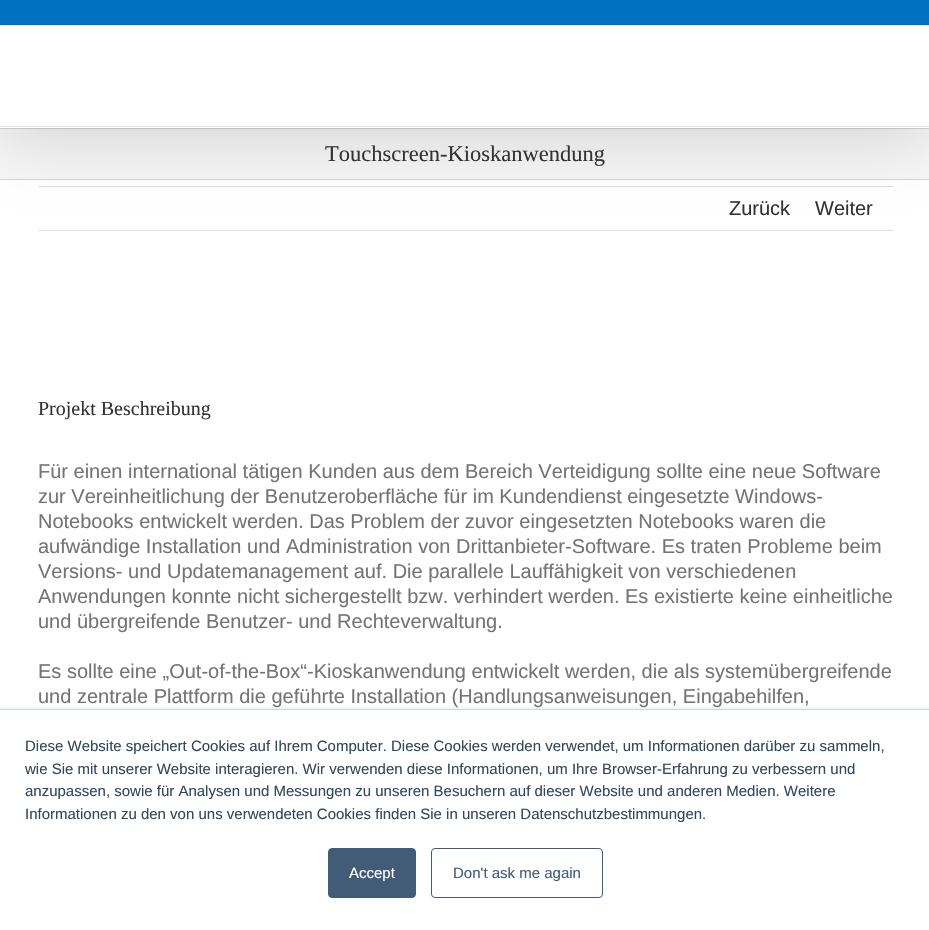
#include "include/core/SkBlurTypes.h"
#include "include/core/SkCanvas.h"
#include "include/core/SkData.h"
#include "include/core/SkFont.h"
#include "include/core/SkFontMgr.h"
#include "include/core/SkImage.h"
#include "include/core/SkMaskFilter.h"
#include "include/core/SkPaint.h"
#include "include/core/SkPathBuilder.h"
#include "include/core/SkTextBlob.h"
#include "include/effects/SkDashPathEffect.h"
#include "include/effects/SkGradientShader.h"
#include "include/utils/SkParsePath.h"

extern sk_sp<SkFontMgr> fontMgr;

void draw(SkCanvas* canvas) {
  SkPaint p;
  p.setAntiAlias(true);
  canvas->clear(SK_ColorWHITE);
  p.setColor(SkColorSetRGB(246, 246, 246));
  canvas->drawRect(SkRect::MakeLTRB(0, 129, 929, 179), p);
  p.setColor(SkColorSetRGB(210, 211, 212));
  canvas->drawRect(SkRect::MakeLTRB(0, 128, 929, 129), p);
  canvas->drawRect(SkRect::MakeLTRB(0, 179, 929, 180), p);
  p.setColor(SkColorSetRGB(224, 222, 222));
  canvas->drawRect(SkRect::MakeLTRB(38, 186, 893, 187), p);
  canvas->drawRect(SkRect::MakeLTRB(38, 230, 893, 231), p);
  p.setColor(SkColorSetARGB(36, 0, 0, 0));
  p.setMaskFilter(SkMaskFilter::MakeBlur(kNormal_SkBlurStyle, 31));
  canvas->drawRect(SkRect::MakeLTRB(3, 15, 928, 138), p);
  p.setMaskFilter(nullptr);
  p.setColor(SkColorSetRGB(0, 112, 192));
  canvas->drawRect(SkRect::MakeLTRB(0, 0, 929, 25), p);
  p.setColor(SkColorSetRGB(229, 229, 229));
  canvas->drawRect(SkRect::MakeLTRB(0, 25, 929, 26), p);
  p.setColor(SK_ColorWHITE);
  canvas->drawRect(SkRect::MakeLTRB(0, 26, 929, 128), p);
  p.setColor(SkColorSetRGB(229, 229, 229));
  canvas->drawRect(SkRect::MakeLTRB(0, 126, 929, 127), p);
  p.setColor(SkColorSetRGB(234, 240, 246));
  p.setMaskFilter(SkMaskFilter::MakeBlur(kNormal_SkBlurStyle, 2));
  canvas->drawRect(SkRect::MakeLTRB(0, 708, 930, 929), p);
  p.setMaskFilter(nullptr);
  p.setColor(SK_ColorWHITE);
  canvas->drawRect(SkRect::MakeLTRB(0, 710, 929, 930), p);
  p.setColor(SkColorSetRGB(203, 214, 226));
  canvas->drawRect(SkRect::MakeLTRB(0, 709, 929, 710), p);
  p.setColor(SkColorSetRGB(66, 91, 118));
  canvas->drawRoundRect(SkRect::MakeLTRB(328.5f, 848.5f, 415.5f, 897.5f), 3.5f, 3.5f, p);
  p.setStyle(SkPaint::kStroke_Style);
  p.setStrokeWidth(1);
  canvas->drawRoundRect(SkRect::MakeLTRB(328.5f, 848.5f, 415.5f, 897.5f), 3.5f, 3.5f, p);
  canvas->drawRoundRect(SkRect::MakeLTRB(431.5f, 848.5f, 602.5f, 897.5f), 3.5f, 3.5f, p);
  SkFont font1(fontMgr->matchFamilyStyle("Liberation Serif", SkFontStyle::Normal()), 22.5f);
  font1.setSubpixel(true);
  p.setStyle(SkPaint::kFill_Style);
  p.setColor(SkColorSetRGB(51, 51, 51));
  canvas->drawString("Touchscreen-Kioskanwendung", 325, 161, font1, p);
  SkFont font2(fontMgr->matchFamilyStyle("Liberation Sans", SkFontStyle::Normal()), 20);
  font2.setSubpixel(true);
  canvas->drawString("Zurück", 729, 215, font2, p);
  canvas->drawString("Weiter", 815, 215, font2, p);
  SkFont font3(fontMgr->matchFamilyStyle("Liberation Serif", SkFontStyle::Normal()), 20);
  font3.setSubpixel(true);
  canvas->drawString("Projekt Beschreibung", 38, 415, font3, p);
  p.setColor(SkColorSetRGB(116, 116, 116));
  canvas->drawString("Für einen international tätigen Kunden aus dem Bereich Verteidigung sollte eine neue Software", 38, 478, font2, p);
  canvas->drawString("zur Vereinheitlichung der Benutzeroberfläche für im Kundendienst eingesetzte Windows-", 38, 503, font2, p);
  canvas->drawString("Notebooks entwickelt werden. Das Problem der zuvor eingesetzten Notebooks waren die", 38, 528, font2, p);
  canvas->drawString("aufwändige Installation und Administration von Drittanbieter-Software. Es traten Probleme beim", 38, 553, font2, p);
  canvas->drawString("Versions- und Updatemanagement auf. Die parallele Lauffähigkeit von verschiedenen", 38, 578, font2, p);
  canvas->drawString("Anwendungen konnte nicht sichergestellt bzw. verhindert werden. Es existierte keine einheitliche", 38, 603, font2, p);
  canvas->drawString("und übergreifende Benutzer- und Rechteverwaltung.", 38, 628, font2, p);
  canvas->drawString("Es sollte eine „Out-of-the-Box“-Kioskanwendung entwickelt werden, die als systemübergreifende", 38, 678, font2, p);
  canvas->drawString("und zentrale Plattform die geführte Installation (Handlungsanweisungen, Eingabehilfen,", 38, 703, font2, p);
  SkFont font4(fontMgr->matchFamilyStyle("Liberation Sans", SkFontStyle::Normal()), 15);
  font4.setSubpixel(true);
  p.setColor(SkColorSetRGB(51, 71, 91));
  canvas->drawString("Diese Website speichert Cookies auf Ihrem Computer. Diese Cookies werden verwendet, um Informationen darüber zu sammeln,", 25, 751, font4, p);
  canvas->drawString("wie Sie mit unserer Website interagieren. Wir verwenden diese Informationen, um Ihre Browser-Erfahrung zu verbessern und", 25, 774, font4, p);
  canvas->drawString("anzupassen, sowie für Analysen und Messungen zu unseren Besuchern auf dieser Website und anderen Medien. Weitere", 25, 796, font4, p);
  canvas->drawString("Informationen zu den von uns verwendeten Cookies finden Sie in unseren Datenschutzbestimmungen.", 25, 819, font4, p);
  p.setColor(SK_ColorWHITE);
  canvas->drawString("Accept", 349, 878, font4, p);
  p.setColor(SkColorSetRGB(66, 91, 118));
  canvas->drawString("Don't ask me again", 453, 878, font4, p);
}
